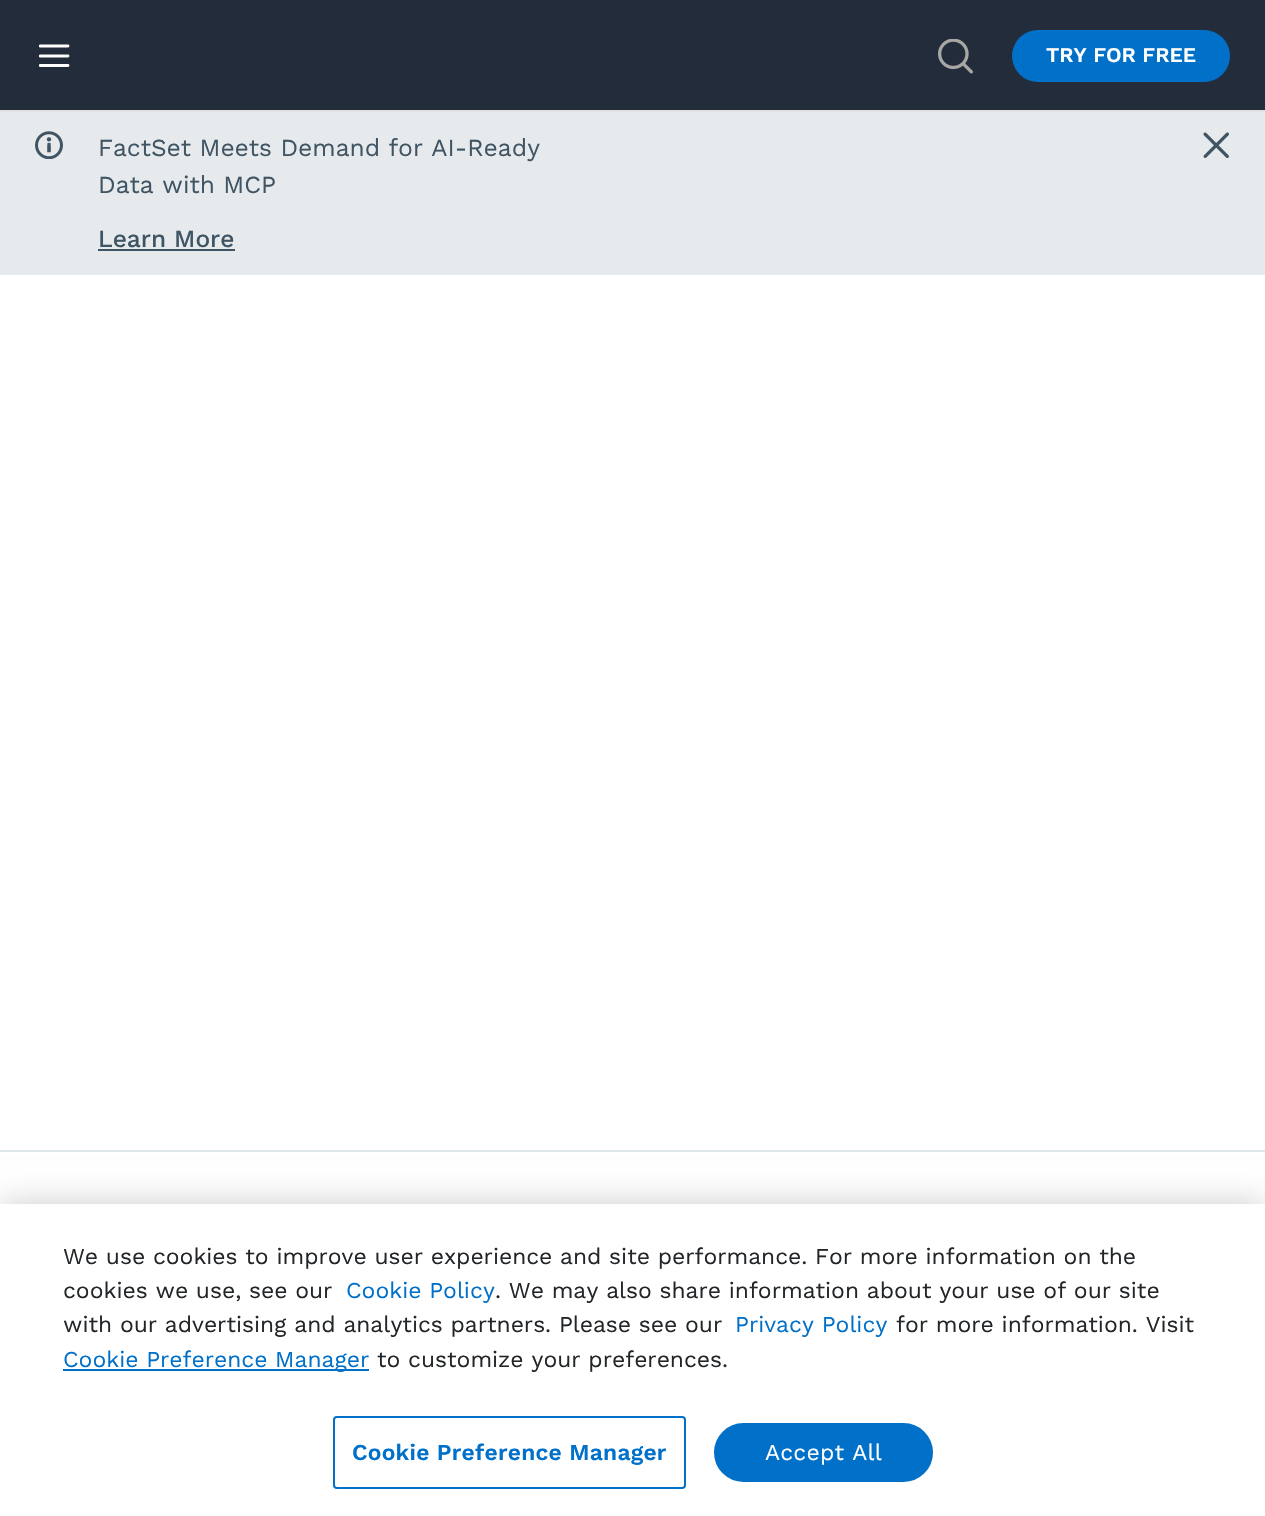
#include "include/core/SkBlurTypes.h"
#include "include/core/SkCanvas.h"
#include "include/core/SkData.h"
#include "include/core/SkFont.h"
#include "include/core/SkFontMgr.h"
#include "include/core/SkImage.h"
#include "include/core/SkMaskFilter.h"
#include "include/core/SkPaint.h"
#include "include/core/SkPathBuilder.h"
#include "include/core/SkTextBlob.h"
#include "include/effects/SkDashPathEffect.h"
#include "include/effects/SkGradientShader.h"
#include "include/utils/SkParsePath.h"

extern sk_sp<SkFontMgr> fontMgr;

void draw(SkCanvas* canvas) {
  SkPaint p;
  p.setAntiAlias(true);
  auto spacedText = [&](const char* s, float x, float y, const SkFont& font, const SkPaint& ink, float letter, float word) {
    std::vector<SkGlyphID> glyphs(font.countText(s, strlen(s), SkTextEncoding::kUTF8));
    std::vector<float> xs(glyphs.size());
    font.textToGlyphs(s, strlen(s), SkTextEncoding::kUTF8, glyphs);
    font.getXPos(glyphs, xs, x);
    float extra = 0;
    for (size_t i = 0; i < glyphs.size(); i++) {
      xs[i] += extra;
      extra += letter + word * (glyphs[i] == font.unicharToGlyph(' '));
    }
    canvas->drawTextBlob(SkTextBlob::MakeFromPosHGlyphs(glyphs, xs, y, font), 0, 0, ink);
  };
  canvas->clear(SK_ColorWHITE);
  p.setColor(SkColorSetRGB(226, 226, 226));
  canvas->drawRect(SkRect::MakeLTRB(0, 110, 1265, 112), p);
  p.setColor(SkColorSetRGB(35, 44, 59));
  canvas->drawRect(SkRect::MakeLTRB(0, 0, 1265, 110), p);
  canvas->save();
  canvas->clipRect(SkRect::MakeLTRB(39, 44, 70, 67));
  p.setStyle(SkPaint::kStroke_Style);
  p.setStrokeWidth(2.8f);
  p.setStrokeCap(SkPaint::kRound_Cap);
  p.setColor(SK_ColorWHITE);
  canvas->drawPath(SkPathBuilder().moveTo(40, 46).lineTo(68, 46).moveTo(40, 56).lineTo(68, 56).moveTo(40, 65.5f).lineTo(68, 65.5f).detach(), p);
  canvas->restore();
  canvas->drawImageRect(SkImages::DeferredFromEncodedData(SkData::MakeFromFileName("images/1.png")), SkRect::MakeLTRB(938, 39, 973, 74), SkSamplingOptions());
  p.setStyle(SkPaint::kFill_Style);
  p.setColor(SkColorSetRGB(0, 112, 201));
  canvas->drawRoundRect(SkRect::MakeLTRB(1012, 30, 1230, 82), 26, 26, p);
  p.setColor(SkColorSetRGB(231, 234, 237));
  canvas->drawRect(SkRect::MakeLTRB(0, 112, 1265, 275), p);
  canvas->drawImageRect(SkImages::DeferredFromEncodedData(SkData::MakeFromFileName("images/2.png")), SkRect::MakeLTRB(35, 131, 63, 159), SkSamplingOptions());
  p.setColor(SkColorSetRGB(64, 85, 100));
  canvas->drawRect(SkRect::MakeLTRB(98, 249, 235, 251), p);
  canvas->drawImageRect(SkImages::DeferredFromEncodedData(SkData::MakeFromFileName("images/3.png")), SkRect::MakeLTRB(1203, 132, 1229, 158), SkSamplingOptions());
  p.setColor(SkColorSetRGB(224, 231, 235));
  canvas->drawRect(SkRect::MakeLTRB(0, 1150, 1265, 1152), p);
  p.setColor(SkColorSetARGB(51, 0, 0, 0));
  p.setMaskFilter(SkMaskFilter::MakeBlur(kNormal_SkBlurStyle, 16));
  canvas->drawRect(SkRect::MakeLTRB(0, 1204, 1265, 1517), p);
  p.setMaskFilter(nullptr);
  p.setColor(SK_ColorWHITE);
  canvas->drawRect(SkRect::MakeLTRB(0, 1204, 1265, 1516), p);
  p.setColor(SkColorSetRGB(0, 112, 201));
  canvas->drawRect(SkRect::MakeLTRB(63, 1369, 369, 1371), p);
  p.setStyle(SkPaint::kStroke_Style);
  p.setStrokeWidth(2);
  p.setStrokeCap(SkPaint::kButt_Cap);
  canvas->drawRoundRect(SkRect::MakeLTRB(334, 1417, 685, 1488), 3, 3, p);
  p.setStyle(SkPaint::kFill_Style);
  canvas->drawRoundRect(SkRect::MakeLTRB(715, 1424, 932, 1481), 28.5f, 28.5f, p);
  p.setStyle(SkPaint::kStroke_Style);
  canvas->drawRoundRect(SkRect::MakeLTRB(715, 1424, 932, 1481), 28.5f, 28.5f, p);
  SkFont font1(fontMgr->matchFamilyStyle("Work Sans", SkFontStyle(600, SkFontStyle::kNormal_Width, SkFontStyle::kUpright_Slant)), 21);
  font1.setSubpixel(true);
  p.setStyle(SkPaint::kFill_Style);
  p.setColor(SK_ColorWHITE);
  canvas->drawString("TRY FOR FREE", 1046, 62, font1, p);
  SkFont font2(fontMgr->matchFamilyStyle("Work Sans", SkFontStyle::Normal()), 24.5f);
  font2.setSubpixel(true);
  p.setColor(SkColorSetRGB(64, 85, 100));
  canvas->drawString("FactSet Meets Demand for AI-Ready", 98, 156, font2, p);
  canvas->drawString("Data with MCP", 98, 193, font2, p);
  SkFont font3(fontMgr->matchFamilyStyle("Work Sans", SkFontStyle(500, SkFontStyle::kNormal_Width, SkFontStyle::kUpright_Slant)), 24.5f);
  font3.setSubpixel(true);
  canvas->drawString("Learn More", 98, 247, font3, p);
  SkFont font4(fontMgr->matchFamilyStyle("Work Sans", SkFontStyle::Normal()), 22.75f);
  font4.setSubpixel(true);
  p.setColor(SkColorSetRGB(35, 38, 41));
  canvas->drawString("We use cookies to improve user experience and site performance. For more information on the", 63, 1264, font4, p);
  canvas->drawString("cookies we use, see our", 63, 1298, font4, p);
  p.setColor(SkColorSetRGB(0, 112, 201));
  canvas->drawString("Cookie Policy", 346, 1298, font4, p);
  p.setColor(SkColorSetRGB(35, 38, 41));
  canvas->drawString(". We may also share information about your use of our site", 495, 1298, font4, p);
  canvas->drawString("with our advertising and analytics partners. Please see our", 63, 1332, font4, p);
  p.setColor(SkColorSetRGB(0, 112, 201));
  canvas->drawString("Privacy Policy", 735, 1332, font4, p);
  p.setColor(SkColorSetRGB(35, 38, 41));
  canvas->drawString("for more information. Visit", 896, 1332, font4, p);
  p.setColor(SkColorSetRGB(0, 112, 201));
  canvas->drawString("Cookie Preference Manager", 63, 1367, font4, p);
  p.setColor(SkColorSetRGB(35, 38, 41));
  canvas->drawString("to customize your preferences.", 377, 1367, font4, p);
  SkFont font5(fontMgr->matchFamilyStyle("Work Sans", SkFontStyle(600, SkFontStyle::kNormal_Width, SkFontStyle::kUpright_Slant)), 22.75f);
  font5.setSubpixel(true);
  p.setColor(SkColorSetRGB(0, 112, 201));
  spacedText("Cookie Preference Manager", 352, 1460, font5, p, 0.25f, 0);
  p.setColor(SK_ColorWHITE);
  spacedText("Accept All", 765, 1460, font4, p, 0.25f, 0);
}
